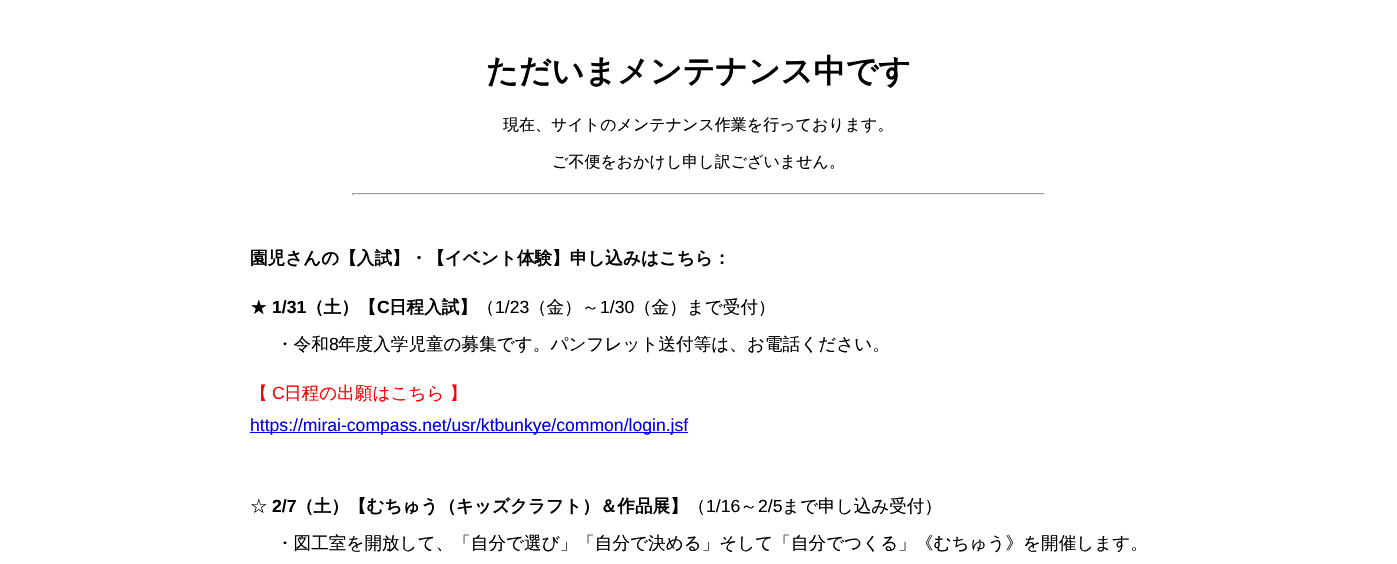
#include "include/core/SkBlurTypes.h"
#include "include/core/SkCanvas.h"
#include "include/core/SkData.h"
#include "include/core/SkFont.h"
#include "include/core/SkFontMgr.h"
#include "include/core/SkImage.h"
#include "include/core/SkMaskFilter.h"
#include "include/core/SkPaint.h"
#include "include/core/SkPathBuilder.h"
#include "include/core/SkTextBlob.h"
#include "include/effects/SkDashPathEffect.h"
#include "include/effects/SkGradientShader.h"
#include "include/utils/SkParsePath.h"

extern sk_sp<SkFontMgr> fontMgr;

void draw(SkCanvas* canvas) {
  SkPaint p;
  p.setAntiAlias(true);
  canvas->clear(SK_ColorWHITE);
  p.setColor(SkColorSetRGB(159, 159, 159));
  canvas->drawRect(SkRect::MakeLTRB(352, 193, 1045, 194), p);
  p.setColor(SkColorSetRGB(238, 238, 238));
  canvas->drawRect(SkRect::MakeLTRB(1044, 193, 1045, 195), p);
  canvas->drawRect(SkRect::MakeLTRB(352, 194, 1045, 195), p);
  p.setColor(SkColorSetRGB(159, 159, 159));
  canvas->drawRect(SkRect::MakeLTRB(352, 193, 353, 195), p);
  p.setColor(SkColorSetRGB(0, 0, 238));
  canvas->drawRect(SkRect::MakeLTRB(250, 432, 688, 433), p);
  SkFont font1(fontMgr->matchFamilyStyle("WenQuanYi Zen Hei", SkFontStyle::Bold()), 32);
  font1.setSubpixel(true);
  p.setColor(SK_ColorBLACK);
  canvas->drawString("ただいまメンテナンス中です", 486, 82, font1, p);
  SkFont font2(fontMgr->matchFamilyStyle("WenQuanYi Zen Hei", SkFontStyle(500, SkFontStyle::kNormal_Width, SkFontStyle::kUpright_Slant)), 16);
  font2.setSubpixel(true);
  canvas->drawString("現在、サイトのメンテナンス作業を行っております。", 503, 130, font2, p);
  canvas->drawString("ご不便をおかけし申し訳ございません。", 552, 167, font2, p);
  SkFont font3(fontMgr->matchFamilyStyle("WenQuanYi Zen Hei", SkFontStyle::Bold()), 17.6f);
  font3.setSubpixel(true);
  canvas->drawString("園児さんの【入試】・【イベント体験】申し込みはこちら：", 250, 264, font3, p);
  SkFont font4(fontMgr->matchFamilyStyle("WenQuanYi Zen Hei", SkFontStyle(500, SkFontStyle::kNormal_Width, SkFontStyle::kUpright_Slant)), 17.6f);
  font4.setSubpixel(true);
  canvas->drawString("★", 250, 313, font4, p);
  SkFont font5(fontMgr->matchFamilyStyle("Liberation Sans", SkFontStyle::Bold()), 17.6f);
  font5.setSubpixel(true);
  canvas->drawString("1/31", 272, 313, font5, p);
  canvas->drawString("（土）【", 306, 313, font3, p);
  canvas->drawString("C", 377, 313, font5, p);
  canvas->drawString("日程入試】", 389, 313, font3, p);
  canvas->drawString("（", 477, 313, font4, p);
  SkFont font6(fontMgr->matchFamilyStyle("Liberation Sans", SkFontStyle::Normal()), 17.6f);
  font6.setSubpixel(true);
  canvas->drawString("1/23", 495, 313, font6, p);
  canvas->drawString("（金）～", 529, 313, font4, p);
  canvas->drawString("1/30", 600, 313, font6, p);
  canvas->drawString("（金）まで受付）", 634, 313, font4, p);
  canvas->drawString("・令和", 276, 350, font4, p);
  canvas->drawString("8", 329, 350, font6, p);
  canvas->drawString("年度入学児童の募集です。パンフレット送付等は、お電話ください。", 338, 350, font4, p);
  p.setColor(SkColorSetRGB(255, 0, 0));
  canvas->drawString("【", 250, 399, font4, p);
  canvas->drawString("C", 272, 399, font6, p);
  canvas->drawString("日程の出願はこちら 】", 284, 399, font4, p);
  p.setColor(SkColorSetRGB(0, 0, 238));
  canvas->drawString("https://mirai-compass.net/usr/ktbunkye/common/login.jsf", 250, 431, font6, p);
  p.setColor(SK_ColorBLACK);
  canvas->drawString("☆", 250, 512, font4, p);
  canvas->drawString("2/7", 272, 512, font5, p);
  canvas->drawString("（土）【むちゅう（キッズクラフト）＆作品展】", 296, 512, font3, p);
  canvas->drawString("（", 688, 512, font4, p);
  canvas->drawString("1/16", 706, 512, font6, p);
  canvas->drawString("～", 740, 512, font4, p);
  canvas->drawString("2/5", 758, 512, font6, p);
  canvas->drawString("まで申し込み受付）", 782, 512, font4, p);
  canvas->drawString("・図工室を開放して、「自分で選び」「自分で決める」そして「自分でつくる」《むちゅう》を開催します。", 276, 549, font4, p);
}
